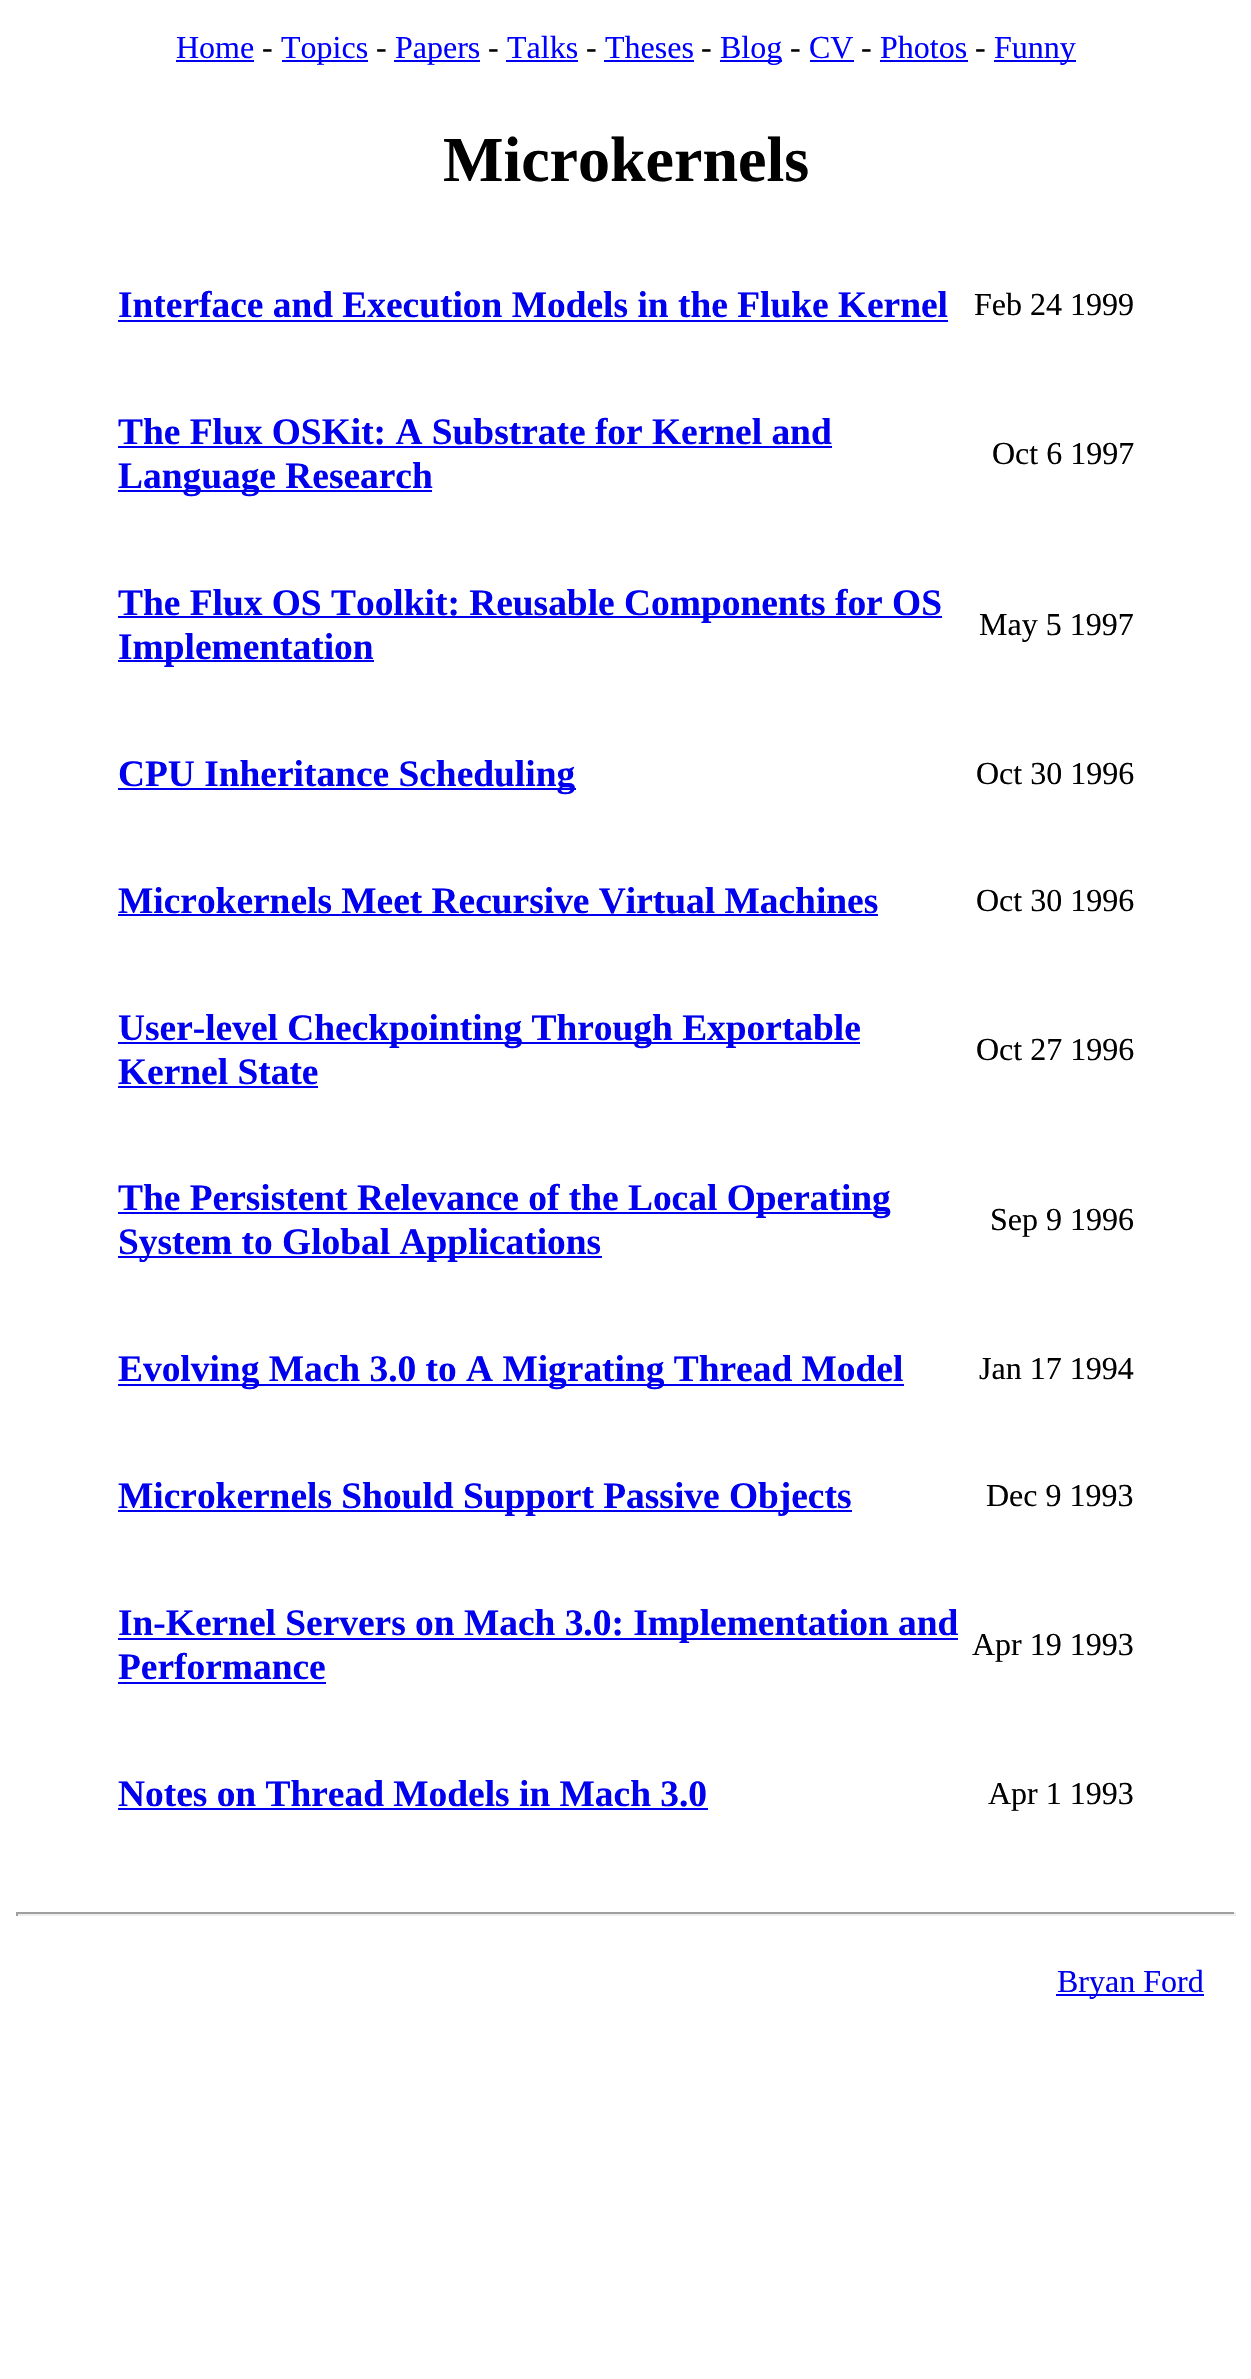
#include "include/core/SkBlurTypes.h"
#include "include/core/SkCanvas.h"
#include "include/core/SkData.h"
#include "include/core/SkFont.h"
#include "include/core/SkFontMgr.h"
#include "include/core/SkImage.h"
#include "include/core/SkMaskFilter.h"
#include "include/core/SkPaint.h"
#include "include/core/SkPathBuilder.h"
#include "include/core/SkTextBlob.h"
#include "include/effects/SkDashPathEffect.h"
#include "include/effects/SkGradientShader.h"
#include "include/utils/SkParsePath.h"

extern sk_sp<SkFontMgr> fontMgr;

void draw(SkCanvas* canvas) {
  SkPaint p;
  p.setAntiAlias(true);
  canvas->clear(SK_ColorWHITE);
  p.setColor(SkColorSetRGB(0, 0, 238));
  canvas->drawRect(SkRect::MakeLTRB(176, 60, 254, 62), p);
  canvas->drawRect(SkRect::MakeLTRB(282, 60, 368, 62), p);
  canvas->drawRect(SkRect::MakeLTRB(394, 60, 480, 62), p);
  canvas->drawRect(SkRect::MakeLTRB(506, 60, 578, 62), p);
  canvas->drawRect(SkRect::MakeLTRB(604, 60, 694, 62), p);
  canvas->drawRect(SkRect::MakeLTRB(720, 60, 782, 62), p);
  canvas->drawRect(SkRect::MakeLTRB(810, 60, 854, 62), p);
  canvas->drawRect(SkRect::MakeLTRB(880, 60, 968, 62), p);
  canvas->drawRect(SkRect::MakeLTRB(994, 60, 1076, 62), p);
  canvas->drawRect(SkRect::MakeLTRB(118, 320, 948, 322), p);
  canvas->drawRect(SkRect::MakeLTRB(118, 446, 832, 448), p);
  canvas->drawRect(SkRect::MakeLTRB(118, 490, 432, 492), p);
  canvas->drawRect(SkRect::MakeLTRB(118, 616, 942, 618), p);
  canvas->drawRect(SkRect::MakeLTRB(118, 660, 374, 662), p);
  canvas->drawRect(SkRect::MakeLTRB(118, 788, 576, 790), p);
  canvas->drawRect(SkRect::MakeLTRB(118, 914, 878, 916), p);
  canvas->drawRect(SkRect::MakeLTRB(118, 1042, 860, 1044), p);
  canvas->drawRect(SkRect::MakeLTRB(118, 1086, 318, 1088), p);
  canvas->drawRect(SkRect::MakeLTRB(118, 1212, 890, 1214), p);
  canvas->drawRect(SkRect::MakeLTRB(118, 1256, 602, 1258), p);
  canvas->drawRect(SkRect::MakeLTRB(118, 1384, 904, 1386), p);
  canvas->drawRect(SkRect::MakeLTRB(118, 1510, 852, 1512), p);
  canvas->drawRect(SkRect::MakeLTRB(118, 1638, 958, 1640), p);
  canvas->drawRect(SkRect::MakeLTRB(118, 1682, 326, 1684), p);
  canvas->drawRect(SkRect::MakeLTRB(118, 1808, 708, 1810), p);
  p.setColor(SkColorSetRGB(159, 159, 159));
  canvas->drawRect(SkRect::MakeLTRB(16, 1912, 1236, 1914), p);
  p.setColor(SkColorSetRGB(238, 238, 238));
  canvas->drawRect(SkRect::MakeLTRB(1234, 1912, 1236, 1916), p);
  canvas->drawRect(SkRect::MakeLTRB(16, 1914, 1236, 1916), p);
  p.setColor(SkColorSetRGB(159, 159, 159));
  canvas->drawRect(SkRect::MakeLTRB(16, 1912, 18, 1916), p);
  p.setColor(SkColorSetRGB(0, 0, 238));
  canvas->drawRect(SkRect::MakeLTRB(1056, 1994, 1204, 1996), p);
  SkFont font1(fontMgr->matchFamilyStyle("Liberation Serif", SkFontStyle::Normal()), 32);
  font1.setSubpixel(true);
  p.setColor(SkColorSetRGB(0, 0, 255));
  canvas->drawString("Home", 176, 58, font1, p);
  p.setColor(SK_ColorBLACK);
  canvas->drawString("-", 262, 58, font1, p);
  p.setColor(SkColorSetRGB(0, 0, 255));
  canvas->drawString("Topics", 281, 58, font1, p);
  p.setColor(SK_ColorBLACK);
  canvas->drawString("-", 376, 58, font1, p);
  p.setColor(SkColorSetRGB(0, 0, 255));
  canvas->drawString("Papers", 395, 58, font1, p);
  p.setColor(SK_ColorBLACK);
  canvas->drawString("-", 488, 58, font1, p);
  p.setColor(SkColorSetRGB(0, 0, 255));
  canvas->drawString("Talks", 507, 58, font1, p);
  p.setColor(SK_ColorBLACK);
  canvas->drawString("-", 586, 58, font1, p);
  p.setColor(SkColorSetRGB(0, 0, 255));
  canvas->drawString("Theses", 605, 58, font1, p);
  p.setColor(SK_ColorBLACK);
  canvas->drawString("-", 701, 58, font1, p);
  p.setColor(SkColorSetRGB(0, 0, 255));
  canvas->drawString("Blog", 720, 58, font1, p);
  p.setColor(SK_ColorBLACK);
  canvas->drawString("-", 790, 58, font1, p);
  p.setColor(SkColorSetRGB(0, 0, 255));
  canvas->drawString("CV", 809, 58, font1, p);
  p.setColor(SK_ColorBLACK);
  canvas->drawString("-", 861, 58, font1, p);
  p.setColor(SkColorSetRGB(0, 0, 255));
  canvas->drawString("Photos", 880, 58, font1, p);
  p.setColor(SK_ColorBLACK);
  canvas->drawString("-", 975, 58, font1, p);
  p.setColor(SkColorSetRGB(0, 0, 255));
  canvas->drawString("Funny", 994, 58, font1, p);
  SkFont font2(fontMgr->matchFamilyStyle("Liberation Serif", SkFontStyle::Bold()), 64);
  font2.setSubpixel(true);
  p.setColor(SK_ColorBLACK);
  canvas->drawString("Microkernels", 443, 181, font2, p);
  SkFont font3(fontMgr->matchFamilyStyle("Liberation Serif", SkFontStyle::Bold()), 37.4f);
  font3.setSubpixel(true);
  p.setColor(SkColorSetRGB(0, 0, 238));
  canvas->drawString("Interface and Execution Models in the Fluke Kernel", 118, 317, font3, p);
  p.setColor(SK_ColorBLACK);
  canvas->drawString("Feb 24 1999", 974, 315, font1, p);
  p.setColor(SkColorSetRGB(0, 0, 238));
  canvas->drawString("The Flux OSKit: A Substrate for Kernel and", 118, 444, font3, p);
  canvas->drawString("Language Research", 118, 488, font3, p);
  p.setColor(SK_ColorBLACK);
  canvas->drawString("Oct 6 1997", 992, 464, font1, p);
  p.setColor(SkColorSetRGB(0, 0, 238));
  canvas->drawString("The Flux OS Toolkit: Reusable Components for OS", 118, 615, font3, p);
  canvas->drawString("Implementation", 118, 659, font3, p);
  p.setColor(SK_ColorBLACK);
  canvas->drawString("May 5 1997", 979, 635, font1, p);
  p.setColor(SkColorSetRGB(0, 0, 238));
  canvas->drawString("CPU Inheritance Scheduling", 118, 786, font3, p);
  p.setColor(SK_ColorBLACK);
  canvas->drawString("Oct 30 1996", 976, 784, font1, p);
  p.setColor(SkColorSetRGB(0, 0, 238));
  canvas->drawString("Microkernels Meet Recursive Virtual Machines", 118, 913, font3, p);
  p.setColor(SK_ColorBLACK);
  canvas->drawString("Oct 30 1996", 976, 911, font1, p);
  p.setColor(SkColorSetRGB(0, 0, 238));
  canvas->drawString("User-level Checkpointing Through Exportable", 118, 1040, font3, p);
  canvas->drawString("Kernel State", 118, 1084, font3, p);
  p.setColor(SK_ColorBLACK);
  canvas->drawString("Oct 27 1996", 976, 1060, font1, p);
  p.setColor(SkColorSetRGB(0, 0, 238));
  canvas->drawString("The Persistent Relevance of the Local Operating", 118, 1210, font3, p);
  canvas->drawString("System to Global Applications", 118, 1254, font3, p);
  p.setColor(SK_ColorBLACK);
  canvas->drawString("Sep 9 1996", 990, 1230, font1, p);
  p.setColor(SkColorSetRGB(0, 0, 238));
  canvas->drawString("Evolving Mach 3.0 to A Migrating Thread Model", 118, 1381, font3, p);
  p.setColor(SK_ColorBLACK);
  canvas->drawString("Jan 17 1994", 979, 1379, font1, p);
  p.setColor(SkColorSetRGB(0, 0, 238));
  canvas->drawString("Microkernels Should Support Passive Objects", 118, 1508, font3, p);
  p.setColor(SK_ColorBLACK);
  canvas->drawString("Dec 9 1993", 986, 1506, font1, p);
  p.setColor(SkColorSetRGB(0, 0, 238));
  canvas->drawString("In-Kernel Servers on Mach 3.0: Implementation and", 118, 1635, font3, p);
  canvas->drawString("Performance", 118, 1679, font3, p);
  p.setColor(SK_ColorBLACK);
  canvas->drawString("Apr 19 1993", 972, 1655, font1, p);
  p.setColor(SkColorSetRGB(0, 0, 238));
  canvas->drawString("Notes on Thread Models in Mach 3.0", 118, 1806, font3, p);
  p.setColor(SK_ColorBLACK);
  canvas->drawString("Apr 1 1993", 988, 1804, font1, p);
  p.setColor(SkColorSetRGB(0, 0, 238));
  canvas->drawString("Bryan Ford", 1057, 1992, font1, p);
}
